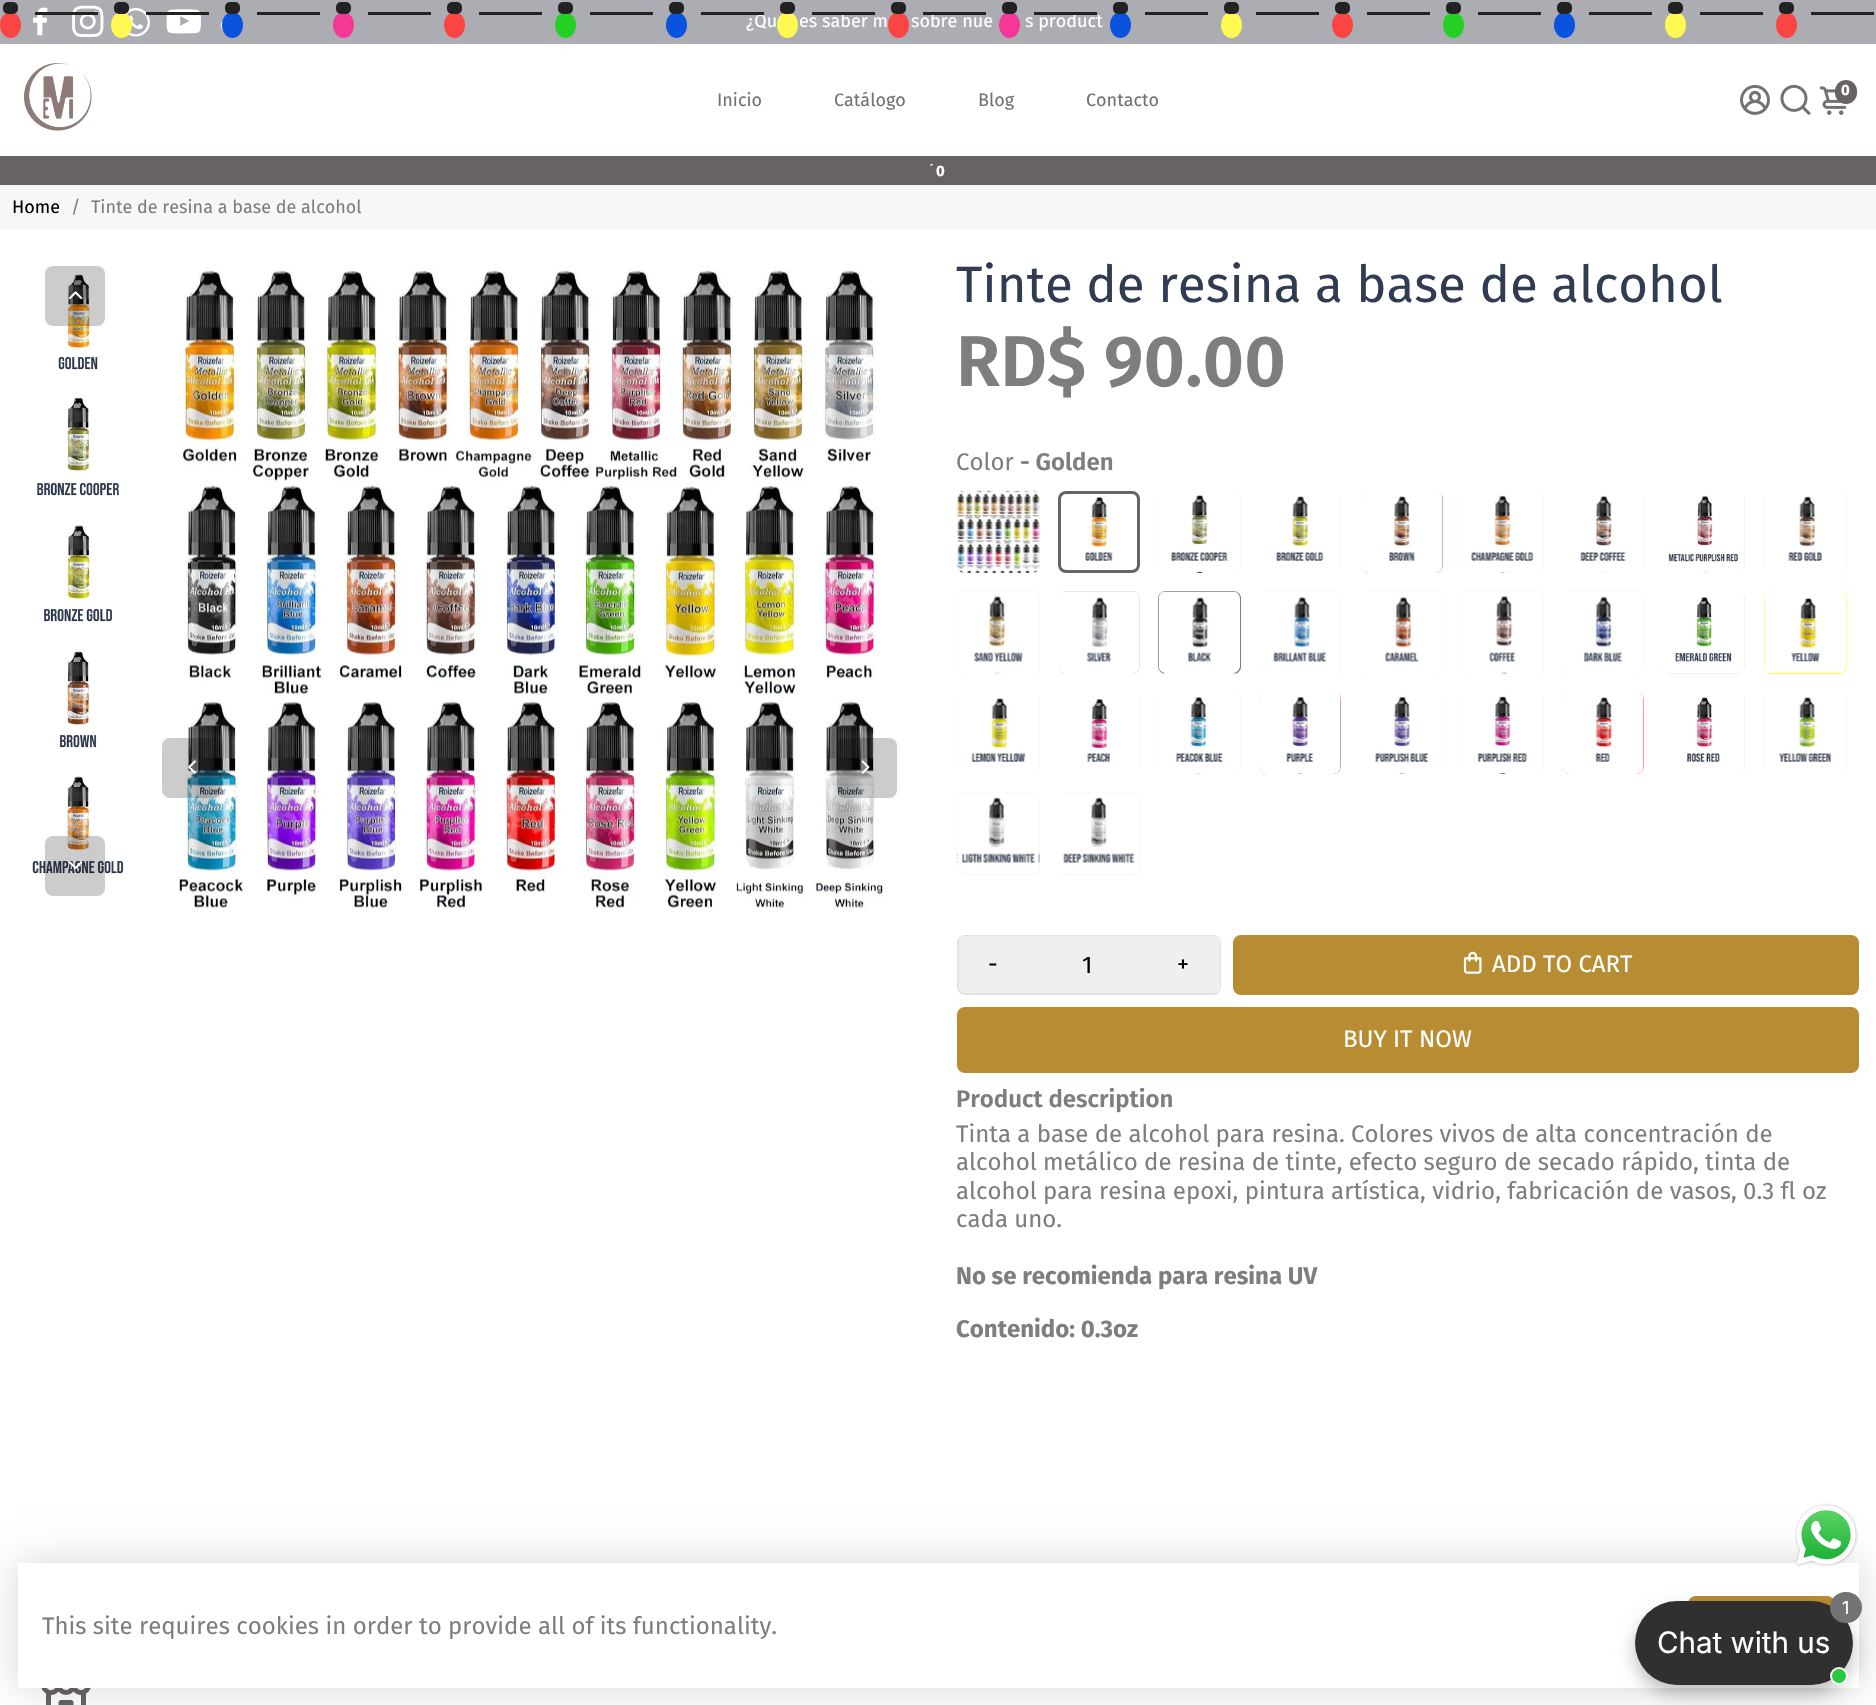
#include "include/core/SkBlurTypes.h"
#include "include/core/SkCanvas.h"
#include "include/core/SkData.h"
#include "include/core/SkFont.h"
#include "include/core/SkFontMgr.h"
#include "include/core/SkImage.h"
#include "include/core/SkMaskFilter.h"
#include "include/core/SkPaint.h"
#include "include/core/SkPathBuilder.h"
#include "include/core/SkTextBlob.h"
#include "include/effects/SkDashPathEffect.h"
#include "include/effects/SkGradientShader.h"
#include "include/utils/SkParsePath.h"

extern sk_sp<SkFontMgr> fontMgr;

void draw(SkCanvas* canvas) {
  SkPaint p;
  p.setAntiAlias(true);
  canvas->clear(SK_ColorWHITE);
  p.setColor(SkColorSetRGB(171, 173, 179));
  canvas->drawRect(SkRect::MakeLTRB(0, 0, 1876, 44), p);
  p.setColor(SkColorSetRGB(251, 69, 69));
  canvas->drawOval(SkRect::MakeLTRB(0, 12, 21, 38), p);
  p.setColor(SkColorSetRGB(34, 34, 34));
  canvas->drawRoundRect(SkRect::MakeLTRB(3, 2, 18, 14), 5, 5, p);
  canvas->drawImageRect(SkImages::DeferredFromEncodedData(SkData::MakeFromFileName("images/1.png")), SkRect::MakeLTRB(33, 7, 48, 36), SkSamplingOptions());
  canvas->drawImageRect(SkImages::DeferredFromEncodedData(SkData::MakeFromFileName("images/2.png")), SkRect::MakeLTRB(72, 5, 104, 37), SkSamplingOptions());
  canvas->drawRect(SkRect::MakeLTRB(35, 12, 98, 15), p);
  canvas->drawImageRect(SkImages::DeferredFromEncodedData(SkData::MakeFromFileName("images/3.png")), SkRect::MakeLTRB(125, 8, 150, 37), SkSamplingOptions());
  p.setColor(SkColorSetRGB(255, 249, 82));
  canvas->drawOval(SkRect::MakeLTRB(111, 12, 132, 38), p);
  p.setColor(SkColorSetRGB(34, 34, 34));
  canvas->drawRoundRect(SkRect::MakeLTRB(114, 2, 129, 14), 5, 5, p);
  canvas->drawImageRect(SkImages::DeferredFromEncodedData(SkData::MakeFromFileName("images/4.png")), SkRect::MakeLTRB(166, 9, 201, 34), SkSamplingOptions());
  canvas->drawRect(SkRect::MakeLTRB(146, 12, 209, 15), p);
  canvas->drawImageRect(SkImages::DeferredFromEncodedData(SkData::MakeFromFileName("images/5.png")), SkRect::MakeLTRB(220, 21, 224, 31), SkSamplingOptions());
  p.setColor(SkColorSetRGB(10, 83, 222));
  canvas->drawOval(SkRect::MakeLTRB(222, 12, 243, 38), p);
  p.setColor(SkColorSetRGB(34, 34, 34));
  canvas->drawRoundRect(SkRect::MakeLTRB(225, 2, 240, 14), 5, 5, p);
  canvas->drawRect(SkRect::MakeLTRB(257, 12, 320, 15), p);
  p.setColor(SkColorSetRGB(245, 56, 150));
  canvas->drawOval(SkRect::MakeLTRB(333, 12, 354, 38), p);
  p.setColor(SkColorSetRGB(34, 34, 34));
  canvas->drawRoundRect(SkRect::MakeLTRB(336, 2, 351, 14), 5, 5, p);
  canvas->drawRect(SkRect::MakeLTRB(368, 12, 431, 15), p);
  p.setColor(SkColorSetRGB(251, 69, 69));
  canvas->drawOval(SkRect::MakeLTRB(444, 12, 465, 38), p);
  p.setColor(SkColorSetRGB(34, 34, 34));
  canvas->drawRoundRect(SkRect::MakeLTRB(447, 2, 462, 14), 5, 5, p);
  canvas->drawRect(SkRect::MakeLTRB(479, 12, 542, 15), p);
  p.setColor(SkColorSetRGB(36, 208, 36));
  canvas->drawOval(SkRect::MakeLTRB(555, 12, 576, 38), p);
  p.setColor(SkColorSetRGB(34, 34, 34));
  canvas->drawRoundRect(SkRect::MakeLTRB(558, 2, 573, 14), 5, 5, p);
  canvas->drawRect(SkRect::MakeLTRB(590, 12, 653, 15), p);
  p.setColor(SkColorSetRGB(10, 83, 222));
  canvas->drawOval(SkRect::MakeLTRB(666, 12, 687, 38), p);
  p.setColor(SkColorSetRGB(34, 34, 34));
  canvas->drawRoundRect(SkRect::MakeLTRB(669, 2, 684, 14), 5, 5, p);
  p.setColor(SkColorSetRGB(255, 249, 82));
  canvas->drawOval(SkRect::MakeLTRB(777, 12, 798, 38), p);
  p.setColor(SkColorSetRGB(34, 34, 34));
  canvas->drawRoundRect(SkRect::MakeLTRB(780, 2, 795, 14), 5, 5, p);
  p.setColor(SkColorSetRGB(251, 69, 69));
  canvas->drawOval(SkRect::MakeLTRB(888, 12, 909, 38), p);
  p.setColor(SkColorSetRGB(34, 34, 34));
  canvas->drawRoundRect(SkRect::MakeLTRB(891, 2, 906, 14), 5, 5, p);
  p.setColor(SkColorSetRGB(245, 56, 150));
  canvas->drawOval(SkRect::MakeLTRB(999, 12, 1020, 38), p);
  p.setColor(SkColorSetRGB(34, 34, 34));
  canvas->drawRoundRect(SkRect::MakeLTRB(1002, 2, 1017, 14), 5, 5, p);
  p.setColor(SkColorSetRGB(10, 83, 222));
  canvas->drawOval(SkRect::MakeLTRB(1110, 12, 1131, 38), p);
  p.setColor(SkColorSetRGB(34, 34, 34));
  canvas->drawRoundRect(SkRect::MakeLTRB(1113, 2, 1128, 14), 5, 5, p);
  canvas->drawRect(SkRect::MakeLTRB(1145, 12, 1208, 15), p);
  p.setColor(SkColorSetRGB(255, 249, 82));
  canvas->drawOval(SkRect::MakeLTRB(1221, 12, 1242, 38), p);
  p.setColor(SkColorSetRGB(34, 34, 34));
  canvas->drawRoundRect(SkRect::MakeLTRB(1224, 2, 1239, 14), 5, 5, p);
  canvas->drawRect(SkRect::MakeLTRB(1256, 12, 1319, 15), p);
  p.setColor(SkColorSetRGB(251, 69, 69));
  canvas->drawOval(SkRect::MakeLTRB(1332, 12, 1353, 38), p);
  p.setColor(SkColorSetRGB(34, 34, 34));
  canvas->drawRoundRect(SkRect::MakeLTRB(1335, 2, 1350, 14), 5, 5, p);
  canvas->drawRect(SkRect::MakeLTRB(1367, 12, 1430, 15), p);
  p.setColor(SkColorSetRGB(36, 208, 36));
  canvas->drawOval(SkRect::MakeLTRB(1443, 12, 1464, 38), p);
  p.setColor(SkColorSetRGB(34, 34, 34));
  canvas->drawRoundRect(SkRect::MakeLTRB(1446, 2, 1461, 14), 5, 5, p);
  canvas->drawRect(SkRect::MakeLTRB(1478, 12, 1541, 15), p);
  p.setColor(SkColorSetRGB(10, 83, 222));
  canvas->drawOval(SkRect::MakeLTRB(1554, 12, 1575, 38), p);
  p.setColor(SkColorSetRGB(34, 34, 34));
  canvas->drawRoundRect(SkRect::MakeLTRB(1557, 2, 1572, 14), 5, 5, p);
  canvas->drawRect(SkRect::MakeLTRB(1589, 12, 1652, 15), p);
  p.setColor(SkColorSetRGB(255, 249, 82));
  canvas->drawOval(SkRect::MakeLTRB(1665, 12, 1686, 38), p);
  p.setColor(SkColorSetRGB(34, 34, 34));
  canvas->drawRoundRect(SkRect::MakeLTRB(1668, 2, 1683, 14), 5, 5, p);
  canvas->drawRect(SkRect::MakeLTRB(1700, 12, 1763, 15), p);
  p.setColor(SkColorSetRGB(251, 69, 69));
  canvas->drawOval(SkRect::MakeLTRB(1776, 12, 1797, 38), p);
  p.setColor(SkColorSetRGB(34, 34, 34));
  canvas->drawRoundRect(SkRect::MakeLTRB(1779, 2, 1794, 14), 5, 5, p);
  canvas->drawRect(SkRect::MakeLTRB(1811, 12, 1874, 15), p);
  canvas->drawImageRect(SkImages::DeferredFromEncodedData(SkData::MakeFromFileName("images/6.png")), SkRect::MakeLTRB(24, 63, 92, 131), SkSamplingOptions());
  canvas->drawImageRect(SkImages::DeferredFromEncodedData(SkData::MakeFromFileName("images/7.png")), SkRect::MakeLTRB(1740, 84, 1770, 115), SkSamplingOptions());
  canvas->drawImageRect(SkImages::DeferredFromEncodedData(SkData::MakeFromFileName("images/8.png")), SkRect::MakeLTRB(1780, 84, 1811, 115), SkSamplingOptions());
  canvas->drawImageRect(SkImages::DeferredFromEncodedData(SkData::MakeFromFileName("images/9.png")), SkRect::MakeLTRB(1819, 86, 1847, 115), SkSamplingOptions());
  p.setColor(SkColorSetRGB(104, 99, 99));
  canvas->drawRoundRect(SkRect::MakeLTRB(1835, 80, 1857, 104), 11, 11, p);
  canvas->drawRect(SkRect::MakeLTRB(0, 156, 1876, 185), p);
  canvas->drawImageRect(SkImages::DeferredFromEncodedData(SkData::MakeFromFileName("images/10.png")), SkRect::MakeLTRB(930, 163, 934, 166), SkSamplingOptions());
  canvas->save();
  canvas->clipRect(SkRect::MakeLTRB(0, 159, 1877, 182));
  canvas->drawRoundRect(SkRect::MakeLTRB(930, 161, 953, 185), 11.5f, 11.5f, p);
  canvas->restore();
  p.setColor(SkColorSetRGB(246, 247, 248));
  canvas->drawRect(SkRect::MakeLTRB(0, 185, 1876, 230), p);
  canvas->drawImageRect(SkImages::DeferredFromEncodedData(SkData::MakeFromFileName("images/15.png")), SkRect::MakeLTRB(58, 274, 99, 370), SkSamplingOptions());
  p.setColor(SkColorSetARGB(51, 0, 0, 0));
  canvas->drawRoundRect(SkRect::MakeLTRB(45, 266, 105, 326), 8, 8, p);
  canvas->drawImageRect(SkImages::DeferredFromEncodedData(SkData::MakeFromFileName("images/11.png")), SkRect::MakeLTRB(68, 291, 83, 300), SkSamplingOptions());
  canvas->drawImageRect(SkImages::DeferredFromEncodedData(SkData::MakeFromFileName("images/12.png")), SkRect::MakeLTRB(178, 269, 884, 909), SkSamplingOptions());
  canvas->drawRoundRect(SkRect::MakeLTRB(162, 738, 222, 798), 8, 8, p);
  canvas->drawImageRect(SkImages::DeferredFromEncodedData(SkData::MakeFromFileName("images/13.png")), SkRect::MakeLTRB(188, 760, 196, 774), SkSamplingOptions());
  canvas->drawRoundRect(SkRect::MakeLTRB(837, 738, 897, 798), 8, 8, p);
  canvas->drawImageRect(SkImages::DeferredFromEncodedData(SkData::MakeFromFileName("images/14.png")), SkRect::MakeLTRB(861, 760, 870, 774), SkSamplingOptions());
  canvas->drawImageRect(SkImages::DeferredFromEncodedData(SkData::MakeFromFileName("images/16.png")), SkRect::MakeLTRB(37, 397, 119, 496), SkSamplingOptions());
  canvas->drawImageRect(SkImages::DeferredFromEncodedData(SkData::MakeFromFileName("images/17.png")), SkRect::MakeLTRB(44, 525, 112, 622), SkSamplingOptions());
  canvas->drawImageRect(SkImages::DeferredFromEncodedData(SkData::MakeFromFileName("images/18.png")), SkRect::MakeLTRB(60, 651, 97, 748), SkSamplingOptions());
  canvas->drawImageRect(SkImages::DeferredFromEncodedData(SkData::MakeFromFileName("images/19.png")), SkRect::MakeLTRB(32, 776, 124, 874), SkSamplingOptions());
  canvas->drawRoundRect(SkRect::MakeLTRB(45, 836, 105, 896), 8, 8, p);
  canvas->drawImageRect(SkImages::DeferredFromEncodedData(SkData::MakeFromFileName("images/20.png")), SkRect::MakeLTRB(68, 861, 83, 870), SkSamplingOptions());
  p.setColor(SkColorSetRGB(239, 239, 239));
  canvas->drawRoundRect(SkRect::MakeLTRB(957, 491, 1040, 573), 8, 8, p);
  canvas->drawImageRect(SkImages::DeferredFromEncodedData(SkData::MakeFromFileName("images/21.png")), SkRect::MakeLTRB(956, 490, 1040, 573), SkSamplingOptions());
  canvas->drawImageRect(SkImages::DeferredFromEncodedData(SkData::MakeFromFileName("images/22.png")), SkRect::MakeLTRB(1058, 491, 1140, 573), SkSamplingOptions());
  p.setStyle(SkPaint::kStroke_Style);
  p.setStrokeWidth(3);
  p.setColor(SkColorSetRGB(104, 99, 99));
  canvas->drawRoundRect(SkRect::MakeLTRB(1059.5f, 492.5f, 1138.5f, 571.5f), 6.5f, 6.5f, p);
  p.setStyle(SkPaint::kFill_Style);
  p.setColor(SkColorSetRGB(239, 239, 239));
  canvas->drawRoundRect(SkRect::MakeLTRB(1158, 491, 1241, 573), 8, 8, p);
  canvas->drawImageRect(SkImages::DeferredFromEncodedData(SkData::MakeFromFileName("images/23.png")), SkRect::MakeLTRB(1158, 491, 1241, 573), SkSamplingOptions());
  canvas->drawRoundRect(SkRect::MakeLTRB(1259, 491, 1341, 573), 8, 8, p);
  canvas->drawImageRect(SkImages::DeferredFromEncodedData(SkData::MakeFromFileName("images/24.png")), SkRect::MakeLTRB(1259, 491, 1341, 573), SkSamplingOptions());
  p.setColor(SkColorSetRGB(165, 42, 42));
  canvas->drawRoundRect(SkRect::MakeLTRB(1361, 491, 1443, 573), 8, 8, p);
  canvas->drawImageRect(SkImages::DeferredFromEncodedData(SkData::MakeFromFileName("images/25.png")), SkRect::MakeLTRB(1361, 491, 1443, 573), SkSamplingOptions());
  p.setColor(SkColorSetRGB(239, 239, 239));
  canvas->drawRoundRect(SkRect::MakeLTRB(1461, 491, 1544, 573), 8, 8, p);
  canvas->drawImageRect(SkImages::DeferredFromEncodedData(SkData::MakeFromFileName("images/26.png")), SkRect::MakeLTRB(1461, 491, 1544, 573), SkSamplingOptions());
  canvas->drawRoundRect(SkRect::MakeLTRB(1562, 491, 1644, 573), 8, 8, p);
  canvas->drawImageRect(SkImages::DeferredFromEncodedData(SkData::MakeFromFileName("images/27.png")), SkRect::MakeLTRB(1562, 491, 1644, 573), SkSamplingOptions());
  canvas->drawRoundRect(SkRect::MakeLTRB(1662, 491, 1745, 573), 8, 8, p);
  canvas->drawImageRect(SkImages::DeferredFromEncodedData(SkData::MakeFromFileName("images/28.png")), SkRect::MakeLTRB(1662, 491, 1745, 573), SkSamplingOptions());
  canvas->drawRoundRect(SkRect::MakeLTRB(1764, 491, 1847, 573), 8, 8, p);
  canvas->drawImageRect(SkImages::DeferredFromEncodedData(SkData::MakeFromFileName("images/29.png")), SkRect::MakeLTRB(1764, 491, 1847, 573), SkSamplingOptions());
  canvas->drawRoundRect(SkRect::MakeLTRB(957, 591, 1040, 674), 8, 8, p);
  canvas->drawImageRect(SkImages::DeferredFromEncodedData(SkData::MakeFromFileName("images/30.png")), SkRect::MakeLTRB(957, 591, 1040, 674), SkSamplingOptions());
  p.setColor(SkColorSetRGB(192, 192, 192));
  canvas->drawRoundRect(SkRect::MakeLTRB(1058, 591, 1140, 674), 8, 8, p);
  canvas->drawImageRect(SkImages::DeferredFromEncodedData(SkData::MakeFromFileName("images/31.png")), SkRect::MakeLTRB(1058, 591, 1140, 674), SkSamplingOptions());
  p.setColor(SK_ColorBLACK);
  canvas->drawRoundRect(SkRect::MakeLTRB(1158, 591, 1241, 674), 8, 8, p);
  canvas->drawImageRect(SkImages::DeferredFromEncodedData(SkData::MakeFromFileName("images/32.png")), SkRect::MakeLTRB(1158, 591, 1241, 674), SkSamplingOptions());
  p.setColor(SkColorSetRGB(239, 239, 239));
  canvas->drawRoundRect(SkRect::MakeLTRB(1259, 591, 1341, 674), 8, 8, p);
  canvas->drawImageRect(SkImages::DeferredFromEncodedData(SkData::MakeFromFileName("images/33.png")), SkRect::MakeLTRB(1259, 591, 1341, 674), SkSamplingOptions());
  canvas->drawRoundRect(SkRect::MakeLTRB(1361, 591, 1443, 674), 8, 8, p);
  canvas->drawImageRect(SkImages::DeferredFromEncodedData(SkData::MakeFromFileName("images/34.png")), SkRect::MakeLTRB(1361, 591, 1443, 674), SkSamplingOptions());
  canvas->drawRoundRect(SkRect::MakeLTRB(1461, 591, 1544, 674), 8, 8, p);
  canvas->drawImageRect(SkImages::DeferredFromEncodedData(SkData::MakeFromFileName("images/35.png")), SkRect::MakeLTRB(1461, 591, 1544, 674), SkSamplingOptions());
  canvas->drawRoundRect(SkRect::MakeLTRB(1562, 591, 1644, 674), 8, 8, p);
  canvas->drawImageRect(SkImages::DeferredFromEncodedData(SkData::MakeFromFileName("images/36.png")), SkRect::MakeLTRB(1562, 591, 1644, 674), SkSamplingOptions());
  canvas->drawRoundRect(SkRect::MakeLTRB(1662, 591, 1745, 674), 8, 8, p);
  canvas->drawImageRect(SkImages::DeferredFromEncodedData(SkData::MakeFromFileName("images/37.png")), SkRect::MakeLTRB(1662, 591, 1745, 674), SkSamplingOptions());
  p.setColor(SkColorSetRGB(255, 255, 0));
  canvas->drawRoundRect(SkRect::MakeLTRB(1764, 591, 1847, 674), 8, 8, p);
  canvas->drawImageRect(SkImages::DeferredFromEncodedData(SkData::MakeFromFileName("images/38.png")), SkRect::MakeLTRB(1764, 591, 1847, 674), SkSamplingOptions());
  p.setColor(SkColorSetRGB(239, 239, 239));
  canvas->drawRoundRect(SkRect::MakeLTRB(957, 692, 1040, 774), 8, 8, p);
  canvas->drawImageRect(SkImages::DeferredFromEncodedData(SkData::MakeFromFileName("images/39.png")), SkRect::MakeLTRB(957, 692, 1040, 774), SkSamplingOptions());
  canvas->drawRoundRect(SkRect::MakeLTRB(1058, 692, 1140, 774), 8, 8, p);
  canvas->drawImageRect(SkImages::DeferredFromEncodedData(SkData::MakeFromFileName("images/40.png")), SkRect::MakeLTRB(1058, 692, 1140, 774), SkSamplingOptions());
  canvas->drawRoundRect(SkRect::MakeLTRB(1158, 692, 1241, 774), 8, 8, p);
  canvas->drawImageRect(SkImages::DeferredFromEncodedData(SkData::MakeFromFileName("images/41.png")), SkRect::MakeLTRB(1158, 692, 1241, 774), SkSamplingOptions());
  p.setColor(SkColorSetRGB(128, 0, 128));
  canvas->drawRoundRect(SkRect::MakeLTRB(1259, 692, 1341, 774), 8, 8, p);
  canvas->drawImageRect(SkImages::DeferredFromEncodedData(SkData::MakeFromFileName("images/42.png")), SkRect::MakeLTRB(1259, 692, 1341, 774), SkSamplingOptions());
  p.setColor(SkColorSetRGB(239, 239, 239));
  canvas->drawRoundRect(SkRect::MakeLTRB(1361, 692, 1443, 774), 8, 8, p);
  canvas->drawImageRect(SkImages::DeferredFromEncodedData(SkData::MakeFromFileName("images/43.png")), SkRect::MakeLTRB(1361, 692, 1443, 774), SkSamplingOptions());
  canvas->drawRoundRect(SkRect::MakeLTRB(1461, 692, 1544, 774), 8, 8, p);
  canvas->drawImageRect(SkImages::DeferredFromEncodedData(SkData::MakeFromFileName("images/44.png")), SkRect::MakeLTRB(1461, 692, 1544, 774), SkSamplingOptions());
  p.setColor(SkColorSetRGB(239, 0, 0));
  canvas->drawRoundRect(SkRect::MakeLTRB(1562, 692, 1644, 774), 8, 8, p);
  canvas->drawImageRect(SkImages::DeferredFromEncodedData(SkData::MakeFromFileName("images/45.png")), SkRect::MakeLTRB(1562, 692, 1644, 774), SkSamplingOptions());
  p.setColor(SkColorSetRGB(239, 239, 239));
  canvas->drawRoundRect(SkRect::MakeLTRB(1662, 692, 1745, 774), 8, 8, p);
  canvas->drawImageRect(SkImages::DeferredFromEncodedData(SkData::MakeFromFileName("images/46.png")), SkRect::MakeLTRB(1662, 692, 1745, 774), SkSamplingOptions());
  canvas->drawRoundRect(SkRect::MakeLTRB(1764, 692, 1847, 774), 8, 8, p);
  canvas->drawImageRect(SkImages::DeferredFromEncodedData(SkData::MakeFromFileName("images/47.png")), SkRect::MakeLTRB(1764, 692, 1847, 774), SkSamplingOptions());
  canvas->drawRoundRect(SkRect::MakeLTRB(957, 792, 1040, 875), 8, 8, p);
  canvas->drawImageRect(SkImages::DeferredFromEncodedData(SkData::MakeFromFileName("images/48.png")), SkRect::MakeLTRB(956, 792, 1040, 875), SkSamplingOptions());
  canvas->drawRoundRect(SkRect::MakeLTRB(1058, 792, 1140, 875), 8, 8, p);
  canvas->drawImageRect(SkImages::DeferredFromEncodedData(SkData::MakeFromFileName("images/49.png")), SkRect::MakeLTRB(1058, 792, 1140, 875), SkSamplingOptions());
  p.setStyle(SkPaint::kStroke_Style);
  p.setStrokeWidth(2);
  p.setColor(SkColorSetRGB(226, 226, 226));
  canvas->drawRoundRect(SkRect::MakeLTRB(958, 936, 1220, 994), 7, 7, p);
  p.setStyle(SkPaint::kFill_Style);
  p.setColor(SkColorSetRGB(239, 239, 239));
  canvas->drawPath(SkPathBuilder().moveTo(965, 936).lineTo(1028, 936).lineTo(1028, 993).lineTo(965, 993).cubicTo(961.5f, 993, 959, 990.5f, 959, 987).lineTo(959, 942).cubicTo(959, 938.5f, 961.5f, 936, 965, 936).close().detach(), p);
  canvas->drawRect(SkRect::MakeLTRB(1028, 936, 1148, 993), p);
  canvas->drawPath(SkPathBuilder().moveTo(1148, 936).lineTo(1214, 936).cubicTo(1217.5f, 936, 1220, 938.5f, 1220, 942).lineTo(1220, 987).cubicTo(1220, 990.5f, 1217.5f, 993, 1214, 993).lineTo(1148, 993).close().detach(), p);
  p.setColor(SkColorSetRGB(183, 140, 50));
  canvas->drawRoundRect(SkRect::MakeLTRB(1233, 935, 1859, 995), 8, 8, p);
  canvas->drawImageRect(SkImages::DeferredFromEncodedData(SkData::MakeFromFileName("images/50.png")), SkRect::MakeLTRB(1463, 951, 1482, 974), SkSamplingOptions());
  canvas->drawRoundRect(SkRect::MakeLTRB(957, 1007, 1859, 1073), 8, 8, p);
  canvas->drawImageRect(SkImages::DeferredFromEncodedData(SkData::MakeFromFileName("images/51.png")), SkRect::MakeLTRB(41, 1688, 91, 1705), SkSamplingOptions());
  p.setColor(SkColorSetARGB(41, 0, 0, 0));
  p.setMaskFilter(SkMaskFilter::MakeBlur(kNormal_SkBlurStyle, 18));
  canvas->drawRect(SkRect::MakeLTRB(18, 1563, 1859, 1688), p);
  p.setMaskFilter(nullptr);
  p.setColor(SK_ColorWHITE);
  canvas->drawRect(SkRect::MakeLTRB(18, 1563, 1859, 1688), p);
  canvas->drawImageRect(SkImages::DeferredFromEncodedData(SkData::MakeFromFileName("images/52.png")), SkRect::MakeLTRB(1795, 1503, 1858, 1567), SkSamplingOptions());
  p.setColor(SkColorSetRGB(183, 140, 50));
  canvas->drawRoundRect(SkRect::MakeLTRB(1688, 1596, 1835, 1655), 8, 8, p);
  p.setColor(SkColorSetARGB(64, 0, 0, 0));
  p.setMaskFilter(SkMaskFilter::MakeBlur(kNormal_SkBlurStyle, 9));
  canvas->drawRoundRect(SkRect::MakeLTRB(1635, 1610, 1853, 1694), 42, 42, p);
  p.setMaskFilter(nullptr);
  p.setColor(SkColorSetRGB(48, 48, 48));
  canvas->drawRoundRect(SkRect::MakeLTRB(1635, 1601, 1853, 1685), 42, 42, p);
  p.setColor(SkColorSetRGB(115, 115, 115));
  canvas->drawRoundRect(SkRect::MakeLTRB(1830, 1592, 1862, 1623), 15.5f, 15.5f, p);
  p.setColor(SkColorSetRGB(39, 202, 64));
  canvas->drawCircle(1839, 1676, 8, p);
  p.setStyle(SkPaint::kStroke_Style);
  p.setColor(SK_ColorWHITE);
  canvas->drawCircle(1839, 1676, 8, p);
  SkFont font1(fontMgr->matchFamilyStyle("Fira Sans", SkFontStyle::Normal()), 18);
  font1.setSubpixel(true);
  p.setStyle(SkPaint::kFill_Style);
  canvas->drawString("¿Qu", 746, 27, font1, p);
  p.setColor(SkColorSetRGB(34, 34, 34));
  canvas->drawRect(SkRect::MakeLTRB(701, 12, 764, 15), p);
  p.setColor(SK_ColorWHITE);
  canvas->drawString("es saber m", 799, 27, font1, p);
  p.setColor(SkColorSetRGB(34, 34, 34));
  canvas->drawRect(SkRect::MakeLTRB(812, 12, 875, 15), p);
  p.setColor(SK_ColorWHITE);
  canvas->drawString("sobre nue", 911, 27, font1, p);
  p.setColor(SkColorSetRGB(34, 34, 34));
  canvas->drawRect(SkRect::MakeLTRB(923, 12, 986, 15), p);
  p.setColor(SK_ColorWHITE);
  canvas->drawString("s product", 1025, 27, font1, p);
  p.setColor(SkColorSetRGB(34, 34, 34));
  canvas->drawRect(SkRect::MakeLTRB(1034, 12, 1097, 15), p);
  p.setColor(SkColorSetRGB(114, 114, 114));
  canvas->drawString("Inicio", 717, 106, font1, p);
  canvas->drawString("Catálogo", 834, 106, font1, p);
  canvas->drawString("Blog", 978, 106, font1, p);
  canvas->drawString("Contacto", 1086, 106, font1, p);
  SkFont font2(fontMgr->matchFamilyStyle("Fira Sans", SkFontStyle::Bold()), 15);
  font2.setSubpixel(true);
  p.setColor(SK_ColorWHITE);
  canvas->drawString("0", 1841, 95, font2, p);
  canvas->drawString("0", 936, 176, font2, p);
  p.setColor(SK_ColorBLACK);
  canvas->drawString("Home", 12, 213, font1, p);
  p.setColor(SkColorSetRGB(126, 126, 126));
  canvas->drawString("/", 71, 213, font1, p);
  canvas->drawString("Tinte de resina a base de alcohol", 91, 213, font1, p);
  SkFont font3(fontMgr->matchFamilyStyle("Fira Sans", SkFontStyle::Normal()), 51);
  font3.setSubpixel(true);
  p.setColor(SkColorSetRGB(49, 60, 82));
  canvas->drawString("Tinte de resina a base de alcohol", 956, 302, font3, p);
  SkFont font4(fontMgr->matchFamilyStyle("Fira Sans", SkFontStyle(600, SkFontStyle::kNormal_Width, SkFontStyle::kUpright_Slant)), 72);
  font4.setSubpixel(true);
  p.setColor(SkColorSetRGB(126, 126, 126));
  canvas->drawString("RD$ 90.00", 956, 386, font4, p);
  SkFont font5(fontMgr->matchFamilyStyle("Fira Sans", SkFontStyle::Normal()), 24);
  font5.setSubpixel(true);
  canvas->drawString("Color", 956, 470, font5, p);
  SkFont font6(fontMgr->matchFamilyStyle("Fira Sans", SkFontStyle(600, SkFontStyle::kNormal_Width, SkFontStyle::kUpright_Slant)), 24);
  font6.setSubpixel(true);
  canvas->drawString("- Golden", 1020, 470, font6, p);
  p.setColor(SK_ColorBLACK);
  canvas->drawString("-", 988, 972, font5, p);
  canvas->drawString("1", 1082, 973, font5, p);
  canvas->drawString("+", 1177, 972, font5, p);
  p.setColor(SK_ColorWHITE);
  canvas->drawString("ADD TO CART", 1492, 972, font5, p);
  canvas->drawString("BUY IT NOW", 1343, 1047, font5, p);
  p.setColor(SkColorSetRGB(126, 126, 126));
  canvas->drawString("Product description", 956, 1107, font6, p);
  canvas->drawString("Tinta a base de alcohol para resina. Colores vivos de alta concentración de", 956, 1142, font5, p);
  canvas->drawString("alcohol metálico de resina de tinte, efecto seguro de secado rápido, tinta de", 956, 1170, font5, p);
  canvas->drawString("alcohol para resina epoxi, pintura artística, vidrio, fabricación de vasos, 0.3 fl oz", 956, 1199, font5, p);
  canvas->drawString("cada uno.", 956, 1227, font5, p);
  SkFont font7(fontMgr->matchFamilyStyle("Fira Sans", SkFontStyle::Bold()), 24);
  font7.setSubpixel(true);
  canvas->drawString("No se recomienda para resina UV", 956, 1284, font7, p);
  canvas->drawString("Contenido: 0.3oz", 956, 1337, font7, p);
  canvas->drawString("This site requires cookies in order to provide all of its functionality.", 42, 1634, font5, p);
  SkFont font8(fontMgr->matchFamilyStyle("Inter", SkFontStyle::Normal()), 18);
  font8.setSubpixel(true);
  p.setColor(SK_ColorWHITE);
  canvas->drawString("1", 1842, 1614, font8, p);
  SkFont font9(fontMgr->matchFamilyStyle("Inter", SkFontStyle::Normal()), 29.5f);
  font9.setSubpixel(true);
  canvas->drawString("Chat with us", 1657, 1653, font9, p);
}
